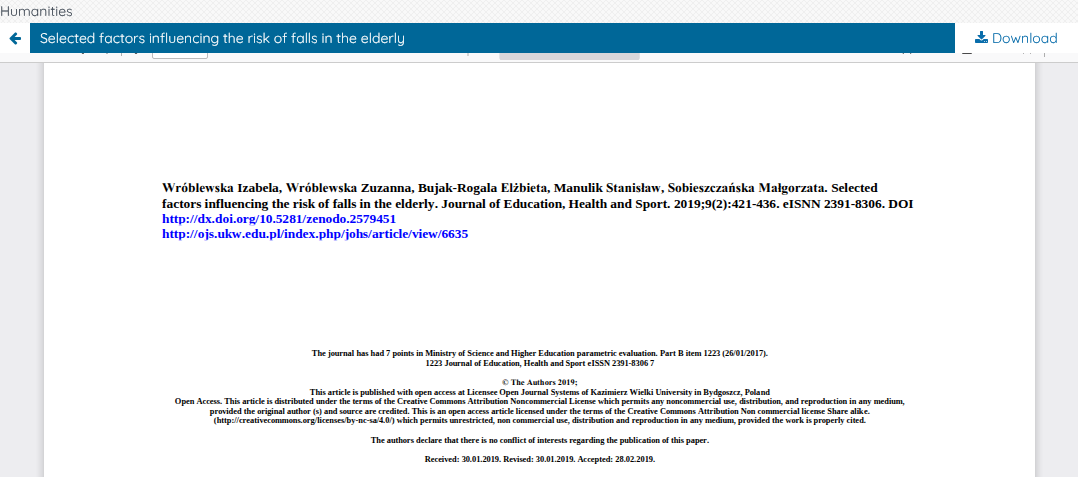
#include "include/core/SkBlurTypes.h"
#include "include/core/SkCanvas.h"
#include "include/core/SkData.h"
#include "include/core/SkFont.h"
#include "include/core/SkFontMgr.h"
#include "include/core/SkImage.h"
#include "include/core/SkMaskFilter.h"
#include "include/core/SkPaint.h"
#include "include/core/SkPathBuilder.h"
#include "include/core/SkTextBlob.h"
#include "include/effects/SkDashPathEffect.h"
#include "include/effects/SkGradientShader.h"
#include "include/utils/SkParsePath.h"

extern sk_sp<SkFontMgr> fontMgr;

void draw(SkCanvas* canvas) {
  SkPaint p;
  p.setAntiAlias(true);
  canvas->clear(SK_ColorWHITE);
  canvas->drawImageRect(SkImages::DeferredFromEncodedData(SkData::MakeFromFileName("images/1.png")), SkRect::MakeLTRB(0, 0, 1078, 23), SkSamplingOptions());
  p.setColor(SkColorSetRGB(0, 103, 152));
  canvas->drawRect(SkRect::MakeLTRB(30, 23, 955, 53), p);
  canvas->drawImageRect(SkImages::DeferredFromEncodedData(SkData::MakeFromFileName("images/2.png")), SkRect::MakeLTRB(9, 32, 21, 45), SkSamplingOptions());
  canvas->drawImageRect(SkImages::DeferredFromEncodedData(SkData::MakeFromFileName("images/3.png")), SkRect::MakeLTRB(975, 31, 988, 43), SkSamplingOptions());
  canvas->drawImageRect(SkImages::DeferredFromEncodedData(SkData::MakeFromFileName("images/4.png")), SkRect::MakeLTRB(0, 53, 1078, 477), SkSamplingOptions());
  SkFont font1(fontMgr->matchFamilyStyle("Quicksand", SkFontStyle::Normal()), 14);
  font1.setSubpixel(true);
  p.setColor(SkColorSetRGB(67, 76, 87));
  canvas->drawString("Humanities", 0, 16, font1, p);
  p.setColor(SK_ColorWHITE);
  canvas->drawString("Selected factors influencing the risk of falls in the elderly", 40, 43, font1, p);
  p.setColor(SkColorSetRGB(9, 109, 171));
  canvas->drawString("Download", 992, 43, font1, p);
}
